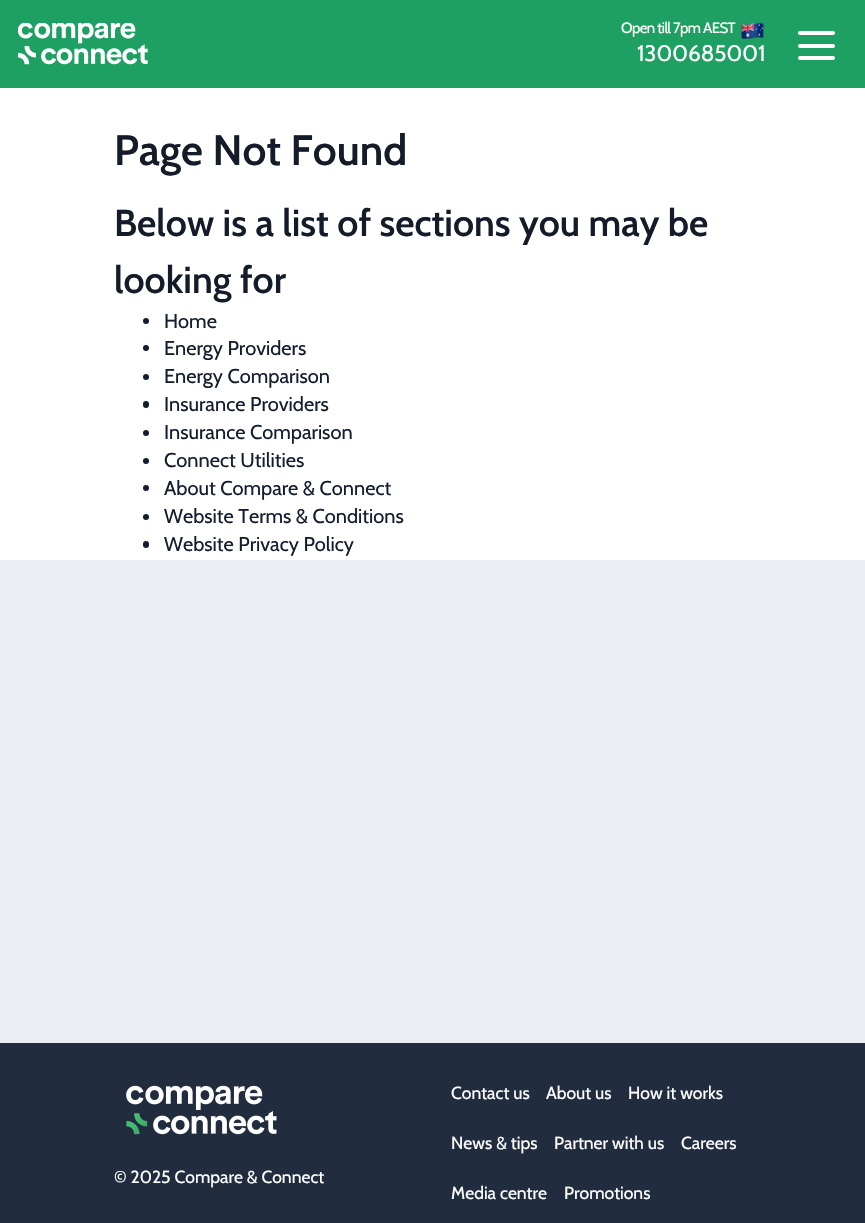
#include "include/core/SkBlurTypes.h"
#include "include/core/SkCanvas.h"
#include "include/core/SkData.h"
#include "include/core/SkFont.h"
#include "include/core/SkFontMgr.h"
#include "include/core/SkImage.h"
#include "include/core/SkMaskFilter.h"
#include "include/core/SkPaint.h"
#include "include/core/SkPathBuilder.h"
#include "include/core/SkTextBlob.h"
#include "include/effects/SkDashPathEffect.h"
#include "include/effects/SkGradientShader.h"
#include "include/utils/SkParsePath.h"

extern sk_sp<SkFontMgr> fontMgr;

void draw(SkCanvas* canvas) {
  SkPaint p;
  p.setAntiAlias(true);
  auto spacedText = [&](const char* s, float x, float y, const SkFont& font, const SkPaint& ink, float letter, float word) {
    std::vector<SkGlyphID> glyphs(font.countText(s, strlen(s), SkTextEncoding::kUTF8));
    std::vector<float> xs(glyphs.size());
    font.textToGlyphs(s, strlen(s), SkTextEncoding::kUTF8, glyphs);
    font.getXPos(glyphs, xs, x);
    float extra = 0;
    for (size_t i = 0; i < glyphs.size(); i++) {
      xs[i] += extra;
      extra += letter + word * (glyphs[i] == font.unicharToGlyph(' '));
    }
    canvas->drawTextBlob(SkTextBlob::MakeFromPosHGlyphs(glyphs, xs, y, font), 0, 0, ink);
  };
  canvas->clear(SkColorSetRGB(33, 44, 63));
  p.setColor(SkColorSetRGB(29, 160, 97));
  canvas->drawRect(SkRect::MakeLTRB(0, 0, 865, 88), p);
  canvas->drawImageRect(SkImages::DeferredFromEncodedData(SkData::MakeFromFileName("images/1.png")), SkRect::MakeLTRB(18, 23, 148, 65), SkSamplingOptions());
  canvas->drawImageRect(SkImages::DeferredFromEncodedData(SkData::MakeFromFileName("images/2.png")), SkRect::MakeLTRB(741, 22, 764, 39), SkSamplingOptions());
  p.setColor(SK_ColorWHITE);
  canvas->drawRoundRect(SkRect::MakeLTRB(798, 31, 835, 35), 2, 2, p);
  canvas->drawRoundRect(SkRect::MakeLTRB(798, 44, 835, 48), 2, 2, p);
  canvas->drawRoundRect(SkRect::MakeLTRB(798, 56, 835, 60), 2, 2, p);
  p.setColor(SkColorSetRGB(235, 238, 245));
  canvas->drawRect(SkRect::MakeLTRB(0, 560, 865, 1043), p);
  p.setColor(SK_ColorWHITE);
  canvas->drawRect(SkRect::MakeLTRB(0, 88, 865, 560), p);
  p.setColor(SkColorSetRGB(20, 29, 47));
  canvas->drawCircle(146, 321, 3, p);
  canvas->drawCircle(146, 348, 3, p);
  canvas->drawCircle(146, 377, 3, p);
  canvas->drawRoundRect(SkRect::MakeLTRB(143, 401, 149, 408), 3, 3, p);
  canvas->drawCircle(146, 433, 3, p);
  canvas->drawCircle(146, 461, 3, p);
  canvas->drawCircle(146, 488, 3, p);
  canvas->drawCircle(146, 517, 3, p);
  canvas->drawRoundRect(SkRect::MakeLTRB(143, 541, 149, 548), 3, 3, p);
  canvas->drawImageRect(SkImages::DeferredFromEncodedData(SkData::MakeFromFileName("images/3.png")), SkRect::MakeLTRB(126, 1085, 277, 1135), SkSamplingOptions());
  SkFont font1(fontMgr->matchFamilyStyle("Cabin", SkFontStyle::Normal()), 15);
  font1.setSubpixel(true);
  p.setColor(SK_ColorWHITE);
  spacedText("Open till 7pm AEST", 621, 33, font1, p, -0.6f, 0);
  SkFont font2(fontMgr->matchFamilyStyle("Cabin", SkFontStyle::Normal()), 22.5f);
  font2.setSubpixel(true);
  canvas->drawString("1300685001", 637, 61, font2, p);
  SkFont font3(fontMgr->matchFamilyStyle("Cabin", SkFontStyle(600, SkFontStyle::kNormal_Width, SkFontStyle::kUpright_Slant)), 42.5f);
  font3.setSubpixel(true);
  p.setColor(SkColorSetRGB(20, 27, 41));
  canvas->drawString("Page Not Found", 114, 165, font3, p);
  SkFont font4(fontMgr->matchFamilyStyle("Cabin", SkFontStyle(600, SkFontStyle::kNormal_Width, SkFontStyle::kUpright_Slant)), 37.5f);
  font4.setSubpixel(true);
  canvas->drawString("Below is a list of sections you may be", 114, 236, font4, p);
  canvas->drawString("looking for", 114, 293, font4, p);
  SkFont font5(fontMgr->matchFamilyStyle("Cabin", SkFontStyle::Normal()), 20);
  font5.setSubpixel(true);
  p.setColor(SkColorSetRGB(20, 30, 47));
  canvas->drawString("Home", 164, 328, font5, p);
  canvas->drawString("Energy Providers", 164, 355, font5, p);
  canvas->drawString("Energy Comparison", 164, 383, font5, p);
  canvas->drawString("Insurance Providers", 164, 411, font5, p);
  canvas->drawString("Insurance Comparison", 164, 439, font5, p);
  canvas->drawString("Connect Utilities", 164, 467, font5, p);
  canvas->drawString("About Compare & Connect", 164, 495, font5, p);
  canvas->drawString("Website Terms & Conditions", 164, 523, font5, p);
  canvas->drawString("Website Privacy Policy", 164, 551, font5, p);
  SkFont font6(fontMgr->matchFamilyStyle("Cabin", SkFontStyle::Normal()), 17.5f);
  font6.setSubpixel(true);
  p.setColor(SK_ColorWHITE);
  canvas->drawString("© 2025 Compare & Connect", 114, 1183, font6, p);
  canvas->drawString("Contact us", 451, 1099, font6, p);
  canvas->drawString("About us", 546, 1099, font6, p);
  canvas->drawString("How it works", 628, 1099, font6, p);
  canvas->drawString("News & tips", 451, 1149, font6, p);
  canvas->drawString("Partner with us", 554, 1149, font6, p);
  canvas->drawString("Careers", 681, 1149, font6, p);
  canvas->drawString("Media centre", 451, 1199, font6, p);
  canvas->drawString("Promotions", 564, 1199, font6, p);
}
